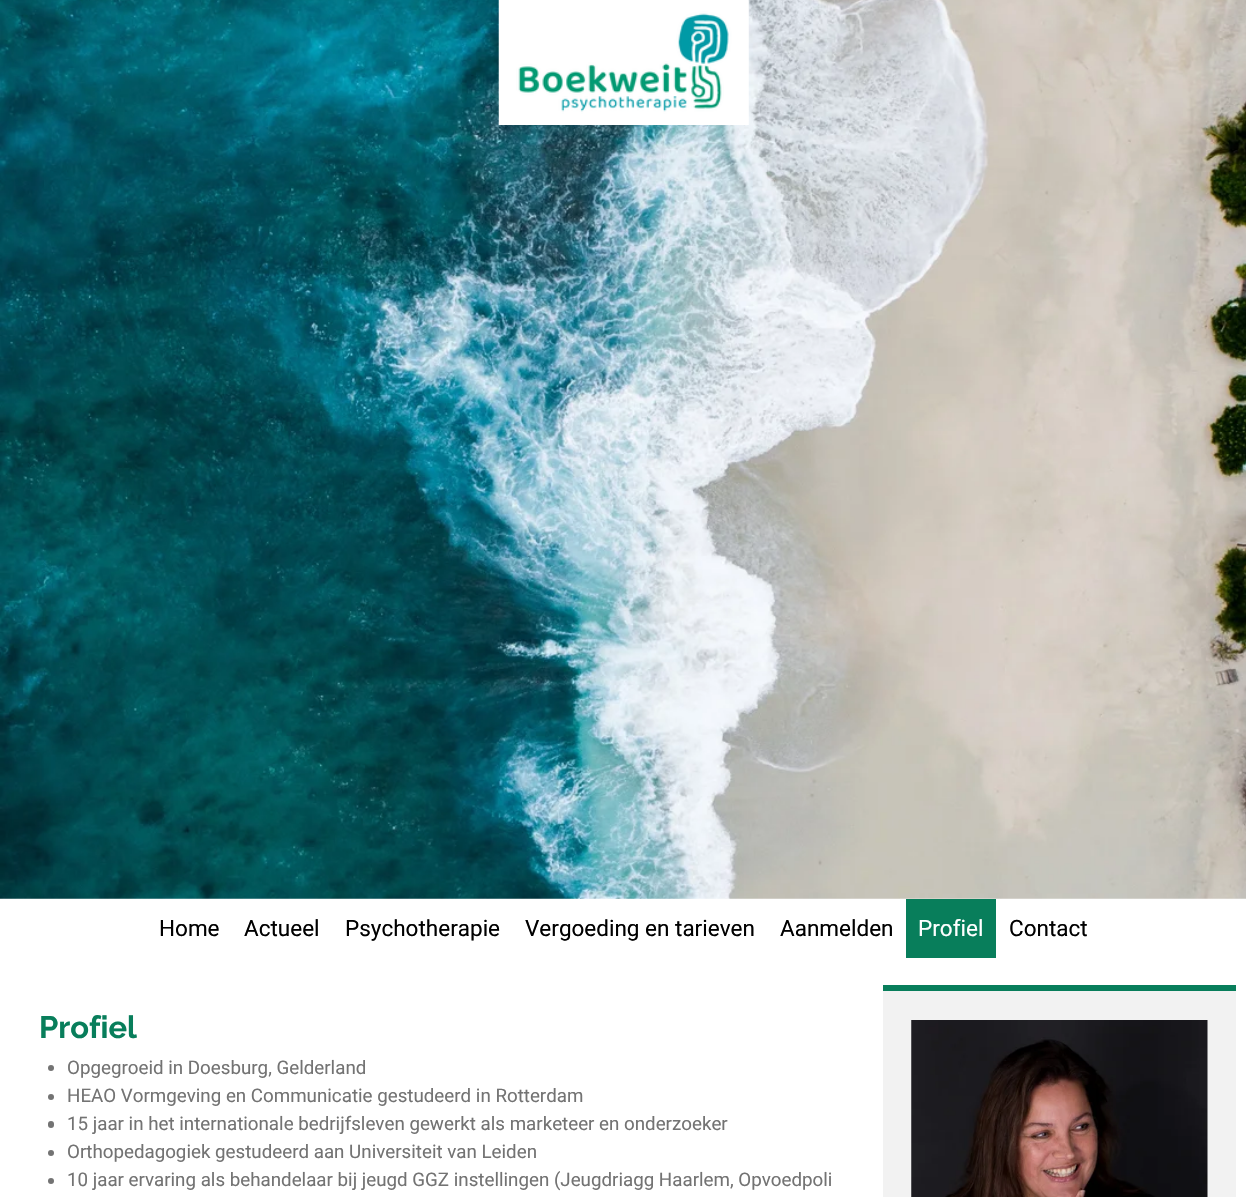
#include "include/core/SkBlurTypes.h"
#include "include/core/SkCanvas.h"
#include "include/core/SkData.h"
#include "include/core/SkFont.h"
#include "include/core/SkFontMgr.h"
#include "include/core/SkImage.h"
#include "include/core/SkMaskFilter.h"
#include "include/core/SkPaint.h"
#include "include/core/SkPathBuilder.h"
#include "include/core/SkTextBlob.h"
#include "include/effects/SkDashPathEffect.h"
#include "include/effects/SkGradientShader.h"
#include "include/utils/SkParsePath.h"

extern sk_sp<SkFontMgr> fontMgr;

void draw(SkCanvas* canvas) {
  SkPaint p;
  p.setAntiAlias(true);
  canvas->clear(SK_ColorWHITE);
  canvas->drawImageRect(SkImages::DeferredFromEncodedData(SkData::MakeFromFileName("images/1.png")), SkRect::MakeLTRB(0, 0, 1246, 899), SkSamplingOptions());
  canvas->drawImageRect(SkImages::DeferredFromEncodedData(SkData::MakeFromFileName("images/2.png")), SkRect::MakeLTRB(498, 0, 749, 125), SkSamplingOptions());
  p.setColor(SkColorSetRGB(8, 126, 91));
  canvas->drawRect(SkRect::MakeLTRB(906, 899, 996, 958), p);
  p.setColor(SkColorSetRGB(115, 115, 115));
  canvas->drawCircle(51, 1068, 3, p);
  canvas->drawCircle(51, 1097, 3, p);
  canvas->drawRoundRect(SkRect::MakeLTRB(48, 1121, 54, 1128), 3, 3, p);
  canvas->drawCircle(51, 1153, 3, p);
  canvas->drawCircle(51, 1181, 3, p);
  p.setColor(SkColorSetRGB(242, 242, 242));
  canvas->drawRect(SkRect::MakeLTRB(883, 991, 1236, 1197), p);
  p.setColor(SkColorSetRGB(8, 126, 91));
  canvas->drawRect(SkRect::MakeLTRB(883, 985, 1236, 991), p);
  canvas->drawImageRect(SkImages::DeferredFromEncodedData(SkData::MakeFromFileName("images/3.png")), SkRect::MakeLTRB(911, 1020, 1208, 1197), SkSamplingOptions());
  SkFont font1(fontMgr->matchFamilyStyle("Roboto", SkFontStyle::Normal()), 22.5f);
  font1.setSubpixel(true);
  p.setColor(SK_ColorBLACK);
  canvas->drawString("Home", 159, 936, font1, p);
  canvas->drawString("Actueel", 244, 936, font1, p);
  canvas->drawString("Psychotherapie", 345, 936, font1, p);
  canvas->drawString("Vergoeding en tarieven", 525, 936, font1, p);
  canvas->drawString("Aanmelden", 780, 936, font1, p);
  p.setColor(SK_ColorWHITE);
  canvas->drawString("Profiel", 918, 936, font1, p);
  p.setColor(SK_ColorBLACK);
  canvas->drawString("Contact", 1009, 936, font1, p);
  SkFont font2(fontMgr->matchFamilyStyle("Raleway", SkFontStyle::Bold()), 31);
  font2.setSubpixel(true);
  p.setColor(SkColorSetRGB(8, 126, 91));
  canvas->drawString("Profiel", 39, 1038, font2, p);
  SkFont font3(fontMgr->matchFamilyStyle("Roboto", SkFontStyle::Normal()), 18.75f);
  font3.setSubpixel(true);
  p.setColor(SkColorSetRGB(115, 115, 115));
  canvas->drawString("Opgegroeid in Doesburg, Gelderland", 67, 1074, font3, p);
  canvas->drawString("HEAO Vormgeving en Communicatie gestudeerd in Rotterdam", 67, 1102, font3, p);
  canvas->drawString("15 jaar in het internationale bedrijfsleven gewerkt als marketeer en onderzoeker", 67, 1130, font3, p);
  canvas->drawString("Orthopedagogiek gestudeerd aan Universiteit van Leiden", 67, 1158, font3, p);
  canvas->drawString("10 jaar ervaring als behandelaar bij jeugd GGZ instellingen (Jeugdriagg Haarlem, Opvoedpoli", 67, 1186, font3, p);
}
